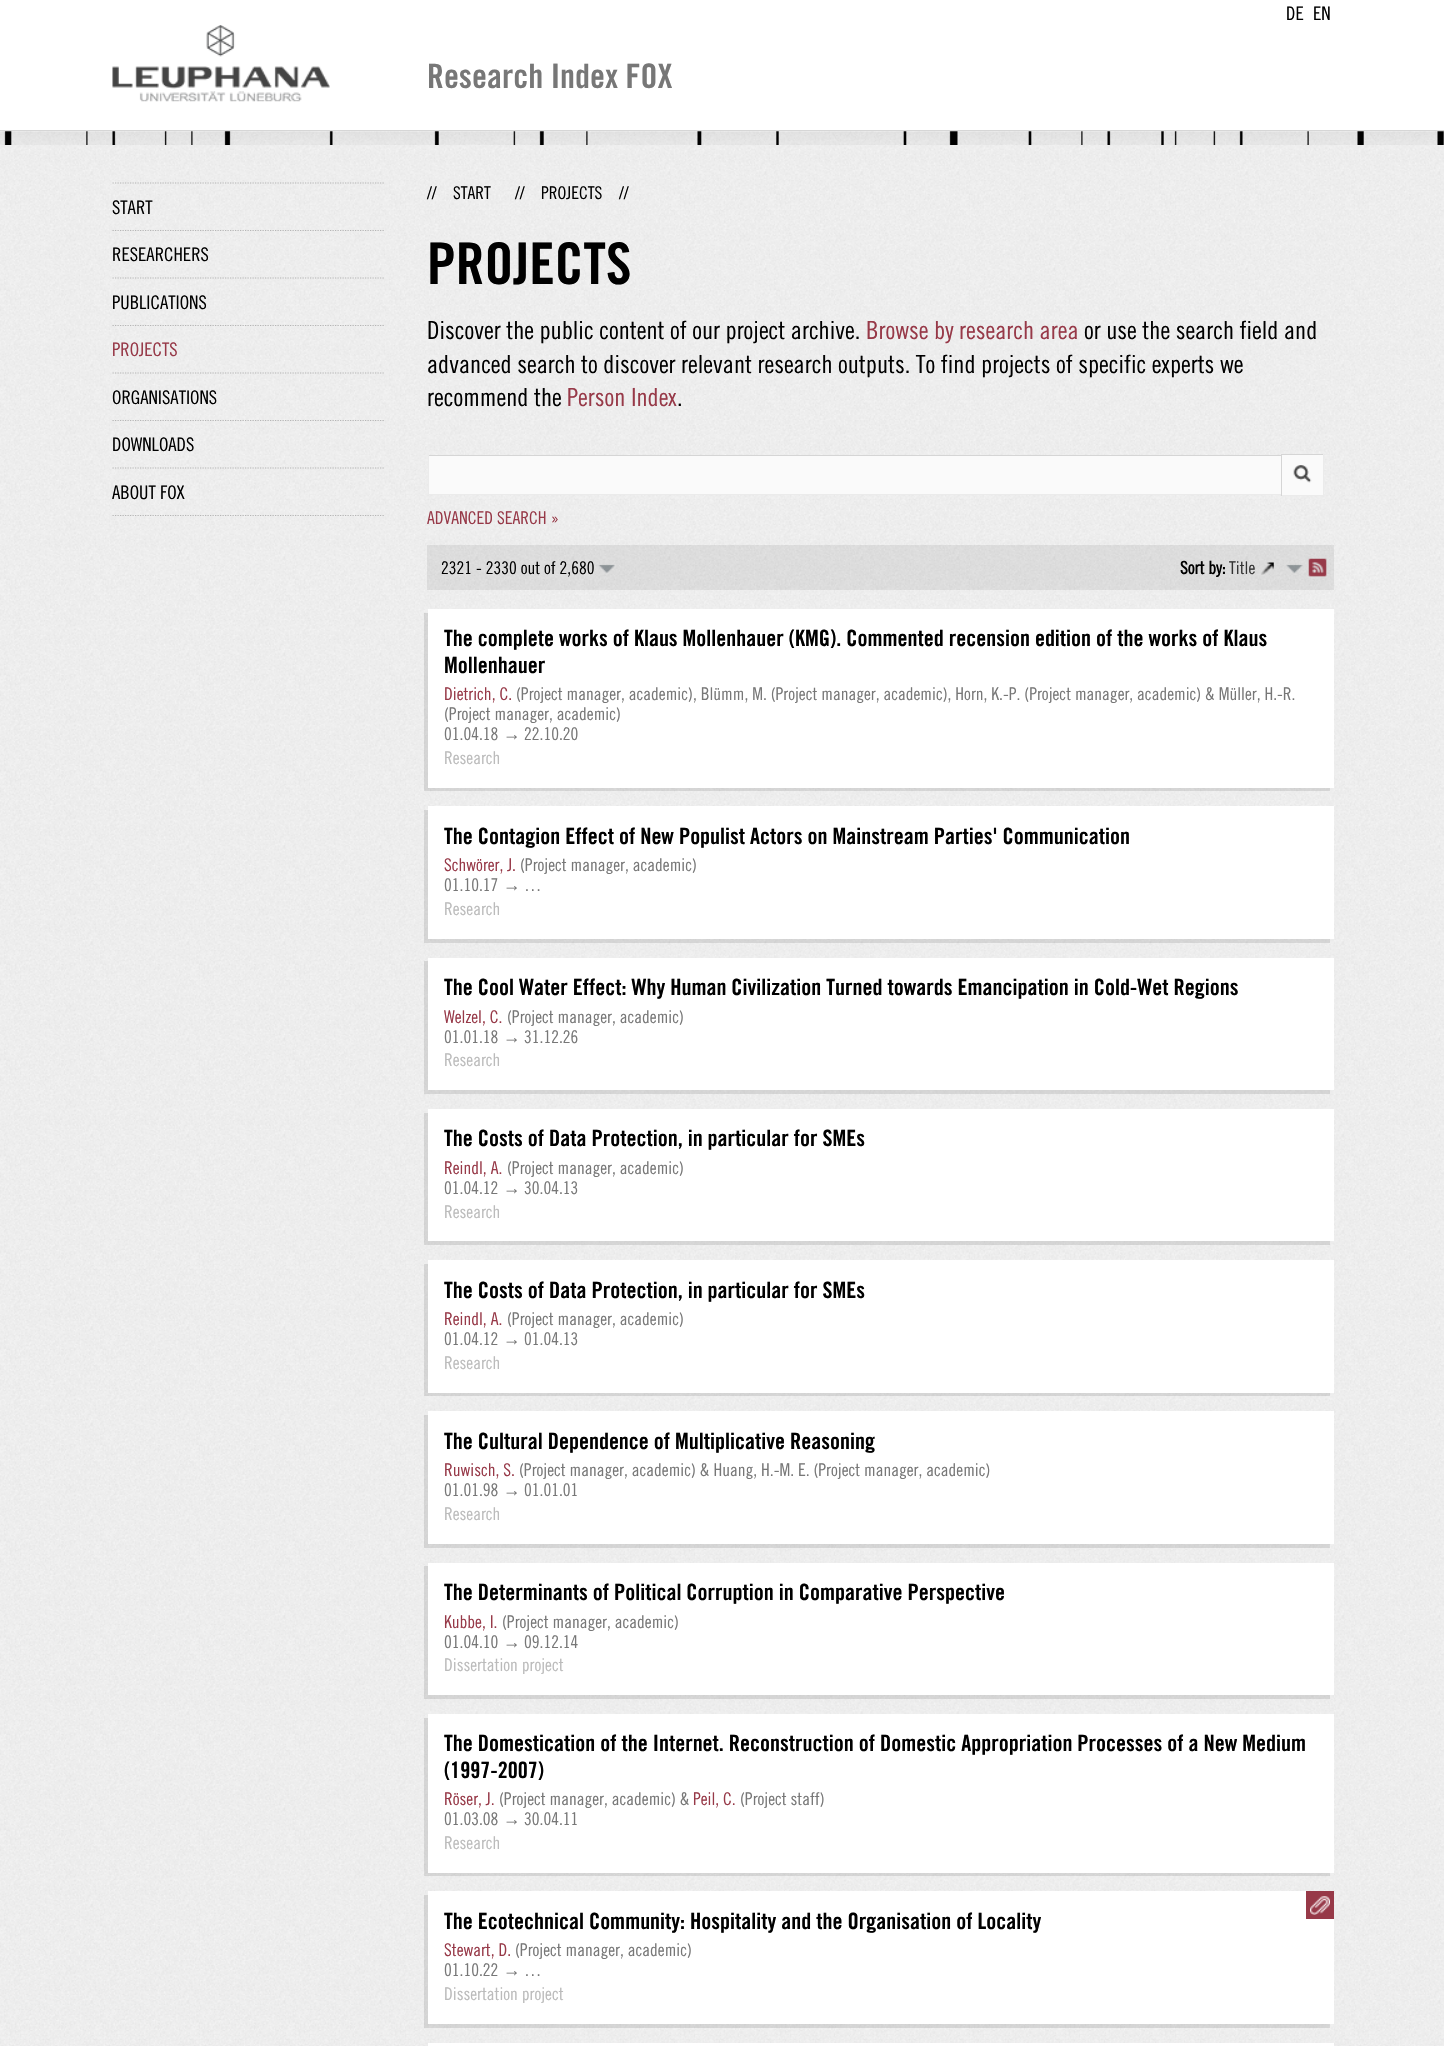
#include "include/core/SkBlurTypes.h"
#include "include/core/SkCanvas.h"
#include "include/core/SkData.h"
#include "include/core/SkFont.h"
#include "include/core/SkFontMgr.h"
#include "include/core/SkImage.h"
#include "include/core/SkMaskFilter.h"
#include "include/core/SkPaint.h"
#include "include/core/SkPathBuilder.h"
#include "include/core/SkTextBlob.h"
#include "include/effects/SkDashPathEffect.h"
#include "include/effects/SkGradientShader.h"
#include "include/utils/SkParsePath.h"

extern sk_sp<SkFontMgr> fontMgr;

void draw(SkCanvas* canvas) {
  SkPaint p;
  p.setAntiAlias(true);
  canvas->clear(SK_ColorWHITE);
  canvas->drawImageRect(SkImages::DeferredFromEncodedData(SkData::MakeFromFileName("images/1.png")), SkRect::MakeLTRB(0, 145, 1444, 2046), SkSamplingOptions());
  p.setColor(SkColorSetRGB(214, 214, 214));
  canvas->drawRect(SkRect::MakeLTRB(0, 130, 1444, 131), p);
  canvas->drawImageRect(SkImages::DeferredFromEncodedData(SkData::MakeFromFileName("images/2.png")), SkRect::MakeLTRB(112, 25, 330, 102), SkSamplingOptions());
  canvas->drawImageRect(SkImages::DeferredFromEncodedData(SkData::MakeFromFileName("images/3.png")), SkRect::MakeLTRB(0, 131, 1444, 145), SkSamplingOptions());
  p.setStyle(SkPaint::kStroke_Style);
  p.setStrokeWidth(1.2f);
  p.setColor(SkColorSetRGB(181, 181, 181));
  p.setPathEffect(SkDashPathEffect::Make({{1.25f, 1.25f}}, 0));
  canvas->drawPath(SkPathBuilder().moveTo(112.5f, 515.5f).lineTo(384, 515.5f).detach(), p);
  p.setPathEffect(nullptr);
  p.setPathEffect(SkDashPathEffect::Make({{1.25f, 1.25f}}, 0));
  canvas->drawPath(SkPathBuilder().moveTo(112.5f, 183).lineTo(384, 183).detach(), p);
  p.setPathEffect(nullptr);
  p.setPathEffect(SkDashPathEffect::Make({{1.25f, 1.25f}}, 0));
  canvas->drawPath(SkPathBuilder().moveTo(112.5f, 230.5f).lineTo(384, 230.5f).detach(), p);
  p.setPathEffect(nullptr);
  p.setPathEffect(SkDashPathEffect::Make({{1.25f, 1.25f}}, 0));
  canvas->drawPath(SkPathBuilder().moveTo(112.5f, 278).lineTo(384, 278).detach(), p);
  p.setPathEffect(nullptr);
  p.setPathEffect(SkDashPathEffect::Make({{1.25f, 1.25f}}, 0));
  canvas->drawPath(SkPathBuilder().moveTo(112.5f, 325.5f).lineTo(384, 325.5f).detach(), p);
  p.setPathEffect(nullptr);
  p.setPathEffect(SkDashPathEffect::Make({{1.25f, 1.25f}}, 0));
  canvas->drawPath(SkPathBuilder().moveTo(112.5f, 373).lineTo(384, 373).detach(), p);
  p.setPathEffect(nullptr);
  p.setPathEffect(SkDashPathEffect::Make({{1.25f, 1.25f}}, 0));
  canvas->drawPath(SkPathBuilder().moveTo(112.5f, 420.5f).lineTo(384, 420.5f).detach(), p);
  p.setPathEffect(nullptr);
  p.setPathEffect(SkDashPathEffect::Make({{1.25f, 1.25f}}, 0));
  canvas->drawPath(SkPathBuilder().moveTo(112.5f, 468).lineTo(384, 468).detach(), p);
  p.setPathEffect(nullptr);
  p.setStyle(SkPaint::kFill_Style);
  p.setColor(SkColorSetRGB(250, 250, 250));
  canvas->drawRect(SkRect::MakeLTRB(429, 456, 1281, 494), p);
  p.setColor(SkColorSetRGB(213, 213, 213));
  canvas->drawRect(SkRect::MakeLTRB(428, 455, 1286, 456), p);
  p.setColor(SkColorSetRGB(235, 235, 235));
  canvas->drawRect(SkRect::MakeLTRB(428, 494, 1286, 495), p);
  canvas->drawRect(SkRect::MakeLTRB(428, 455, 429, 495), p);
  p.setColor(SkColorSetRGB(250, 250, 250));
  canvas->drawRect(SkRect::MakeLTRB(1282, 455, 1323, 495), p);
  p.setColor(SkColorSetRGB(213, 213, 213));
  canvas->drawRect(SkRect::MakeLTRB(1281, 454, 1324, 455), p);
  p.setColor(SkColorSetRGB(235, 235, 235));
  canvas->drawRect(SkRect::MakeLTRB(1323, 454, 1324, 496), p);
  canvas->drawRect(SkRect::MakeLTRB(1281, 495, 1324, 496), p);
  p.setColor(SkColorSetRGB(213, 213, 213));
  canvas->drawRect(SkRect::MakeLTRB(1281, 454, 1282, 496), p);
  canvas->drawImageRect(SkImages::DeferredFromEncodedData(SkData::MakeFromFileName("images/4.png")), SkRect::MakeLTRB(1293, 465, 1312, 483), SkSamplingOptions());
  p.setColor(SkColorSetARGB(18, 0, 0, 0));
  canvas->drawRect(SkRect::MakeLTRB(427, 545, 1334, 590), p);
  canvas->drawImageRect(SkImages::DeferredFromEncodedData(SkData::MakeFromFileName("images/5.png")), SkRect::MakeLTRB(598, 564, 615, 574), SkSamplingOptions());
  canvas->drawImageRect(SkImages::DeferredFromEncodedData(SkData::MakeFromFileName("images/6.png")), SkRect::MakeLTRB(1286, 564, 1303, 574), SkSamplingOptions());
  canvas->drawImageRect(SkImages::DeferredFromEncodedData(SkData::MakeFromFileName("images/7.png")), SkRect::MakeLTRB(1261, 562, 1274, 575), SkSamplingOptions());
  canvas->drawImageRect(SkImages::DeferredFromEncodedData(SkData::MakeFromFileName("images/8.png")), SkRect::MakeLTRB(1308, 558, 1327, 577), SkSamplingOptions());
  p.setColor(SkColorSetARGB(26, 0, 0, 0));
  canvas->drawPath(SkPathBuilder().moveTo(424, 613).lineTo(424, 791).lineTo(1330, 791).lineTo(1330, 788).lineTo(428, 788).lineTo(428, 613).close().detach(), p);
  p.setColor(SK_ColorWHITE);
  canvas->drawRect(SkRect::MakeLTRB(428, 609, 1334, 788), p);
  p.setColor(SkColorSetARGB(26, 0, 0, 0));
  canvas->drawPath(SkPathBuilder().moveTo(424, 810).lineTo(424, 943).lineTo(1330, 943).lineTo(1330, 939).lineTo(428, 939).lineTo(428, 810).close().detach(), p);
  p.setColor(SK_ColorWHITE);
  canvas->drawRect(SkRect::MakeLTRB(428, 806, 1334, 939), p);
  p.setColor(SkColorSetARGB(26, 0, 0, 0));
  canvas->drawPath(SkPathBuilder().moveTo(424, 961).lineTo(424, 1094).lineTo(1330, 1094).lineTo(1330, 1090).lineTo(428, 1090).lineTo(428, 961).close().detach(), p);
  p.setColor(SK_ColorWHITE);
  canvas->drawRect(SkRect::MakeLTRB(428, 958, 1334, 1090), p);
  p.setColor(SkColorSetARGB(26, 0, 0, 0));
  canvas->drawPath(SkPathBuilder().moveTo(424, 1113).lineTo(424, 1245).lineTo(1330, 1245).lineTo(1330, 1241).lineTo(428, 1241).lineTo(428, 1113).close().detach(), p);
  p.setColor(SK_ColorWHITE);
  canvas->drawRect(SkRect::MakeLTRB(428, 1109, 1334, 1241), p);
  p.setColor(SkColorSetARGB(26, 0, 0, 0));
  canvas->drawPath(SkPathBuilder().moveTo(424, 1264).lineTo(424, 1396).lineTo(1330, 1396).lineTo(1330, 1392).lineTo(428, 1392).lineTo(428, 1264).close().detach(), p);
  p.setColor(SK_ColorWHITE);
  canvas->drawRect(SkRect::MakeLTRB(428, 1260, 1334, 1393), p);
  p.setColor(SkColorSetARGB(26, 0, 0, 0));
  canvas->drawPath(SkPathBuilder().moveTo(424, 1415).lineTo(424, 1548).lineTo(1330, 1548).lineTo(1330, 1544).lineTo(428, 1544).lineTo(428, 1415).close().detach(), p);
  p.setColor(SK_ColorWHITE);
  canvas->drawRect(SkRect::MakeLTRB(428, 1411, 1334, 1544), p);
  p.setColor(SkColorSetARGB(26, 0, 0, 0));
  canvas->drawPath(SkPathBuilder().moveTo(424, 1566).lineTo(424, 1699).lineTo(1330, 1699).lineTo(1330, 1695).lineTo(428, 1695).lineTo(428, 1566).close().detach(), p);
  p.setColor(SK_ColorWHITE);
  canvas->drawRect(SkRect::MakeLTRB(428, 1563, 1334, 1695), p);
  p.setColor(SkColorSetARGB(26, 0, 0, 0));
  canvas->drawPath(SkPathBuilder().moveTo(424, 1718).lineTo(424, 1876).lineTo(1330, 1876).lineTo(1330, 1872).lineTo(428, 1872).lineTo(428, 1718).close().detach(), p);
  p.setColor(SK_ColorWHITE);
  canvas->drawRect(SkRect::MakeLTRB(428, 1714, 1334, 1873), p);
  p.setColor(SkColorSetARGB(26, 0, 0, 0));
  canvas->drawPath(SkPathBuilder().moveTo(424, 1895).lineTo(424, 2028).lineTo(1330, 2028).lineTo(1330, 2024).lineTo(428, 2024).lineTo(428, 1895).close().detach(), p);
  p.setColor(SK_ColorWHITE);
  canvas->drawRect(SkRect::MakeLTRB(428, 1891, 1334, 2024), p);
  p.setColor(SkColorSetRGB(151, 57, 72));
  canvas->drawRect(SkRect::MakeLTRB(1306, 1891, 1334, 1919), p);
  canvas->drawImageRect(SkImages::DeferredFromEncodedData(SkData::MakeFromFileName("images/9.png")), SkRect::MakeLTRB(1310, 1896, 1330, 1915), SkSamplingOptions());
  p.setColor(SK_ColorWHITE);
  canvas->drawRect(SkRect::MakeLTRB(428, 2043, 1334, 2046), p);
  SkFont font1(fontMgr->matchFamilyStyle("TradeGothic", SkFontStyle::Normal()), 18.75f);
  font1.setSubpixel(true);
  p.setColor(SK_ColorBLACK);
  canvas->drawString("DE", 1286, 20, font1, p);
  canvas->drawString("EN", 1313, 20, font1, p);
  SkFont font2(fontMgr->matchFamilyStyle("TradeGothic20", SkFontStyle::Bold()), 33.75f);
  font2.setSubpixel(true);
  p.setColor(SkColorSetRGB(119, 119, 119));
  canvas->drawString("Research Index FOX", 427, 88, font2, p);
  p.setColor(SK_ColorBLACK);
  canvas->drawString("START", 112, 214, font1, p);
  canvas->drawString("RESEARCHERS", 112, 261, font1, p);
  canvas->drawString("PUBLICATIONS", 112, 309, font1, p);
  p.setColor(SkColorSetRGB(151, 57, 72));
  canvas->drawString("PROJECTS", 112, 356, font1, p);
  p.setColor(SK_ColorBLACK);
  canvas->drawString("ORGANISATIONS", 112, 404, font1, p);
  canvas->drawString("DOWNLOADS", 112, 451, font1, p);
  canvas->drawString("ABOUT FOX", 112, 499, font1, p);
  SkFont font3(fontMgr->matchFamilyStyle("TradeGothic", SkFontStyle::Normal()), 17.5f);
  font3.setSubpixel(true);
  canvas->drawString("//", 427, 199, font3, p);
  canvas->drawString("START", 453, 199, font3, p);
  canvas->drawString("//", 515, 199, font3, p);
  canvas->drawString("PROJECTS", 541, 199, font3, p);
  canvas->drawString("//", 619, 199, font3, p);
  SkFont font4(fontMgr->matchFamilyStyle("TradeGothic20", SkFontStyle::Bold()), 57.5f);
  font4.setSubpixel(true);
  canvas->drawString("PROJECTS", 427, 284, font4, p);
  SkFont font5(fontMgr->matchFamilyStyle("TradeGothic", SkFontStyle::Normal()), 25);
  font5.setSubpixel(true);
  canvas->drawString("Discover the public content of our project archive.", 427, 339, font5, p);
  p.setColor(SkColorSetRGB(151, 57, 72));
  canvas->drawString("Browse by research area", 866, 339, font5, p);
  p.setColor(SK_ColorBLACK);
  canvas->drawString("or use the search field and", 1084, 339, font5, p);
  canvas->drawString("advanced search to discover relevant research outputs. To find projects of specific experts we", 427, 373, font5, p);
  canvas->drawString("recommend the", 427, 406, font5, p);
  p.setColor(SkColorSetRGB(151, 57, 72));
  canvas->drawString("Person Index", 567, 406, font5, p);
  p.setColor(SK_ColorBLACK);
  canvas->drawString(".", 677, 406, font5, p);
  p.setColor(SkColorSetRGB(151, 57, 72));
  canvas->drawString("ADVANCED SEARCH »", 427, 524, font3, p);
  p.setColor(SK_ColorBLACK);
  canvas->drawString("2321 - 2330 out of 2,680", 441, 574, font3, p);
  SkFont font6(fontMgr->matchFamilyStyle("TradeGothic", SkFontStyle::Bold()), 17.5f);
  font6.setSubpixel(true);
  canvas->drawString("Sort by:", 1180, 574, font6, p);
  p.setColor(SkColorSetRGB(51, 51, 51));
  canvas->drawString("Title", 1229, 574, font3, p);
  SkFont font7(fontMgr->matchFamilyStyle("TradeGothic20", SkFontStyle::Bold()), 22.5f);
  font7.setSubpixel(true);
  p.setColor(SK_ColorBLACK);
  canvas->drawString("The complete works of Klaus Mollenhauer (KMG). Commented recension edition of the works of Klaus", 444, 646, font7, p);
  canvas->drawString("Mollenhauer", 444, 673, font7, p);
  p.setColor(SkColorSetRGB(151, 57, 72));
  canvas->drawString("Dietrich, C.", 444, 700, font3, p);
  p.setColor(SkColorSetRGB(119, 119, 119));
  canvas->drawString("(Project manager, academic), Blümm, M. (Project manager, academic), Horn, K.-P. (Project manager, academic) & Müller, H.-R.", 516, 700, font3, p);
  canvas->drawString("(Project manager, academic)", 444, 720, font3, p);
  canvas->drawString("01.04.18", 444, 740, font3, p);
  SkFont font8(fontMgr->matchFamilyStyle("Liberation Sans", SkFontStyle::Normal()), 17.5f);
  font8.setSubpixel(true);
  canvas->drawString("→", 503, 740, font8, p);
  canvas->drawString("22.10.20", 524, 740, font3, p);
  p.setColor(SkColorSetRGB(187, 187, 187));
  canvas->drawString("Research", 444, 764, font3, p);
  p.setColor(SK_ColorBLACK);
  canvas->drawString("The Contagion Effect of New Populist Actors on Mainstream Parties' Communication", 444, 844, font7, p);
  p.setColor(SkColorSetRGB(151, 57, 72));
  canvas->drawString("Schwörer, J.", 444, 871, font3, p);
  p.setColor(SkColorSetRGB(119, 119, 119));
  canvas->drawString("(Project manager, academic)", 520, 871, font3, p);
  canvas->drawString("01.10.17", 444, 891, font3, p);
  canvas->drawString("→", 503, 891, font8, p);
  canvas->drawString("…", 524, 891, font3, p);
  p.setColor(SkColorSetRGB(187, 187, 187));
  canvas->drawString("Research", 444, 915, font3, p);
  p.setColor(SK_ColorBLACK);
  canvas->drawString("The Cool Water Effect: Why Human Civilization Turned towards Emancipation in Cold-Wet Regions", 444, 995, font7, p);
  p.setColor(SkColorSetRGB(151, 57, 72));
  canvas->drawString("Welzel, C.", 444, 1023, font3, p);
  p.setColor(SkColorSetRGB(119, 119, 119));
  canvas->drawString("(Project manager, academic)", 507, 1023, font3, p);
  canvas->drawString("01.01.18", 444, 1043, font3, p);
  canvas->drawString("→", 503, 1043, font8, p);
  canvas->drawString("31.12.26", 524, 1043, font3, p);
  p.setColor(SkColorSetRGB(187, 187, 187));
  canvas->drawString("Research", 444, 1066, font3, p);
  p.setColor(SK_ColorBLACK);
  canvas->drawString("The Costs of Data Protection, in particular for SMEs", 444, 1146, font7, p);
  p.setColor(SkColorSetRGB(151, 57, 72));
  canvas->drawString("Reindl, A.", 444, 1174, font3, p);
  p.setColor(SkColorSetRGB(119, 119, 119));
  canvas->drawString("(Project manager, academic)", 507, 1174, font3, p);
  canvas->drawString("01.04.12", 444, 1194, font3, p);
  canvas->drawString("→", 503, 1194, font8, p);
  canvas->drawString("30.04.13", 524, 1194, font3, p);
  p.setColor(SkColorSetRGB(187, 187, 187));
  canvas->drawString("Research", 444, 1218, font3, p);
  p.setColor(SK_ColorBLACK);
  canvas->drawString("The Costs of Data Protection, in particular for SMEs", 444, 1298, font7, p);
  p.setColor(SkColorSetRGB(151, 57, 72));
  canvas->drawString("Reindl, A.", 444, 1325, font3, p);
  p.setColor(SkColorSetRGB(119, 119, 119));
  canvas->drawString("(Project manager, academic)", 507, 1325, font3, p);
  canvas->drawString("01.04.12", 444, 1345, font3, p);
  canvas->drawString("→", 503, 1345, font8, p);
  canvas->drawString("01.04.13", 524, 1345, font3, p);
  p.setColor(SkColorSetRGB(187, 187, 187));
  canvas->drawString("Research", 444, 1369, font3, p);
  p.setColor(SK_ColorBLACK);
  canvas->drawString("The Cultural Dependence of Multiplicative Reasoning", 444, 1449, font7, p);
  p.setColor(SkColorSetRGB(151, 57, 72));
  canvas->drawString("Ruwisch, S.", 444, 1476, font3, p);
  p.setColor(SkColorSetRGB(119, 119, 119));
  canvas->drawString("(Project manager, academic) & Huang, H.-M. E. (Project manager, academic)", 519, 1476, font3, p);
  canvas->drawString("01.01.98", 444, 1496, font3, p);
  canvas->drawString("→", 503, 1496, font8, p);
  canvas->drawString("01.01.01", 524, 1496, font3, p);
  p.setColor(SkColorSetRGB(187, 187, 187));
  canvas->drawString("Research", 444, 1520, font3, p);
  p.setColor(SK_ColorBLACK);
  canvas->drawString("The Determinants of Political Corruption in Comparative Perspective", 444, 1600, font7, p);
  p.setColor(SkColorSetRGB(151, 57, 72));
  canvas->drawString("Kubbe, I.", 444, 1628, font3, p);
  p.setColor(SkColorSetRGB(119, 119, 119));
  canvas->drawString("(Project manager, academic)", 502, 1628, font3, p);
  canvas->drawString("01.04.10", 444, 1648, font3, p);
  canvas->drawString("→", 503, 1648, font8, p);
  canvas->drawString("09.12.14", 524, 1648, font3, p);
  p.setColor(SkColorSetRGB(187, 187, 187));
  canvas->drawString("Dissertation project", 444, 1671, font3, p);
  p.setColor(SK_ColorBLACK);
  canvas->drawString("The Domestication of the Internet. Reconstruction of Domestic Appropriation Processes of a New Medium", 444, 1751, font7, p);
  canvas->drawString("(1997-2007)", 444, 1778, font7, p);
  p.setColor(SkColorSetRGB(151, 57, 72));
  canvas->drawString("Röser, J.", 444, 1805, font3, p);
  p.setColor(SkColorSetRGB(119, 119, 119));
  canvas->drawString("(Project manager, academic) &", 499, 1805, font3, p);
  p.setColor(SkColorSetRGB(151, 57, 72));
  canvas->drawString("Peil, C.", 693, 1805, font3, p);
  p.setColor(SkColorSetRGB(119, 119, 119));
  canvas->drawString("(Project staff)", 740, 1805, font3, p);
  canvas->drawString("01.03.08", 444, 1825, font3, p);
  canvas->drawString("→", 503, 1825, font8, p);
  canvas->drawString("30.04.11", 524, 1825, font3, p);
  p.setColor(SkColorSetRGB(187, 187, 187));
  canvas->drawString("Research", 444, 1849, font3, p);
  p.setColor(SK_ColorBLACK);
  canvas->drawString("The Ecotechnical Community: Hospitality and the Organisation of Locality", 444, 1929, font7, p);
  p.setColor(SkColorSetRGB(151, 57, 72));
  canvas->drawString("Stewart, D.", 444, 1956, font3, p);
  p.setColor(SkColorSetRGB(119, 119, 119));
  canvas->drawString("(Project manager, academic)", 515, 1956, font3, p);
  canvas->drawString("01.10.22", 444, 1976, font3, p);
  canvas->drawString("→", 503, 1976, font8, p);
  canvas->drawString("…", 524, 1976, font3, p);
  p.setColor(SkColorSetRGB(187, 187, 187));
  canvas->drawString("Dissertation project", 444, 2000, font3, p);
}
